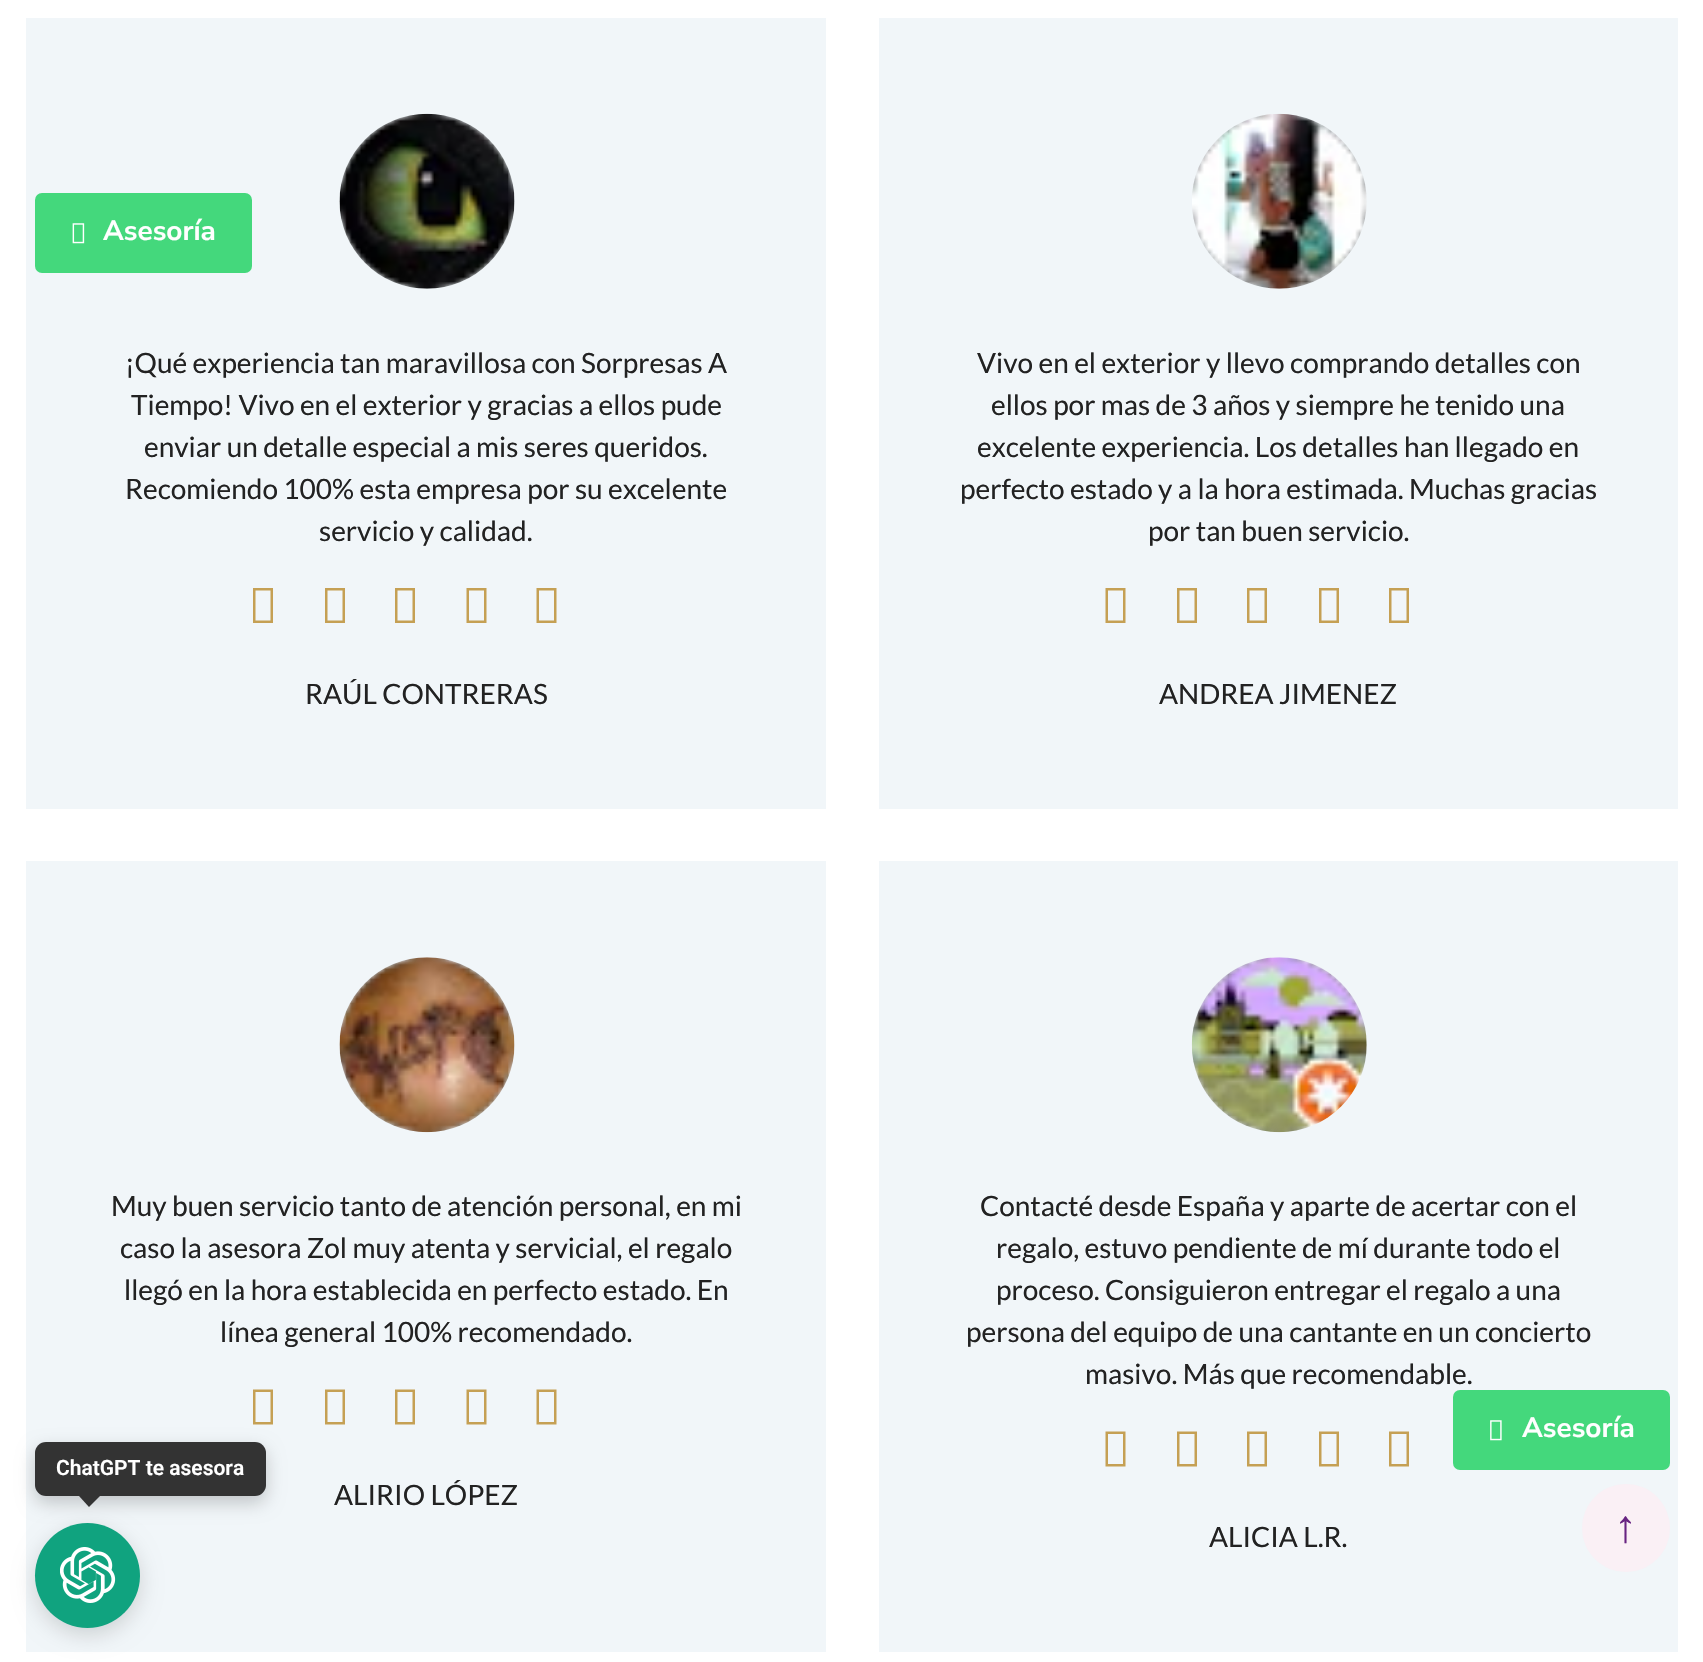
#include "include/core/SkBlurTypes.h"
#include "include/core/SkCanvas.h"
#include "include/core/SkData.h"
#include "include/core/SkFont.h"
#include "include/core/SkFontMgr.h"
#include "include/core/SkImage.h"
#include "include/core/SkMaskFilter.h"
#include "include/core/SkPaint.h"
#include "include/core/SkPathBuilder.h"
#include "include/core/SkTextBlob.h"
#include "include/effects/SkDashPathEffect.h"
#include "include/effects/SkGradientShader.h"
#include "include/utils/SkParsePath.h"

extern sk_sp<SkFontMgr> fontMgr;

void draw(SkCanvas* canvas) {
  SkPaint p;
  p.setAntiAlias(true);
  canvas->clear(SK_ColorWHITE);
  p.setColor(SkColorSetRGB(241, 246, 249));
  canvas->drawRect(SkRect::MakeLTRB(26, 18, 826, 809), p);
  p.setColor(SkColorSetRGB(68, 216, 124));
  canvas->drawRoundRect(SkRect::MakeLTRB(35, 193, 252, 273), 7, 7, p);
  canvas->drawImageRect(SkImages::DeferredFromEncodedData(SkData::MakeFromFileName("images/1.png")), SkRect::MakeLTRB(72, 223, 85, 244), SkSamplingOptions());
  canvas->drawImageRect(SkImages::DeferredFromEncodedData(SkData::MakeFromFileName("images/2.png")), SkRect::MakeLTRB(339, 113, 515, 289), SkSamplingOptions());
  p.setColor(SkColorSetRGB(197, 160, 84));
  canvas->drawPath(SkPathBuilder().moveTo(253, 623).lineTo(253, 588).lineTo(273, 588).lineTo(273, 623).close().moveTo(255.5f, 620.5f).lineTo(270.5f, 620.5f).lineTo(270.5f, 590.5f).lineTo(255.5f, 590.5f).close().detach(), p);
  canvas->drawPath(SkPathBuilder().moveTo(325, 623).lineTo(325, 588).lineTo(345, 588).lineTo(345, 623).close().moveTo(327.5f, 620.5f).lineTo(342.5f, 620.5f).lineTo(342.5f, 590.5f).lineTo(327.5f, 590.5f).close().detach(), p);
  canvas->drawPath(SkPathBuilder().moveTo(395, 623).lineTo(395, 588).lineTo(415, 588).lineTo(415, 623).close().moveTo(397.5f, 620.5f).lineTo(412.5f, 620.5f).lineTo(412.5f, 590.5f).lineTo(397.5f, 590.5f).close().detach(), p);
  canvas->drawPath(SkPathBuilder().moveTo(466.5f, 623).lineTo(466.5f, 588).lineTo(486.5f, 588).lineTo(486.5f, 623).close().moveTo(469, 620.5f).lineTo(484, 620.5f).lineTo(484, 590.5f).lineTo(469, 590.5f).close().detach(), p);
  canvas->drawPath(SkPathBuilder().moveTo(536.5f, 623).lineTo(536.5f, 588).lineTo(556.5f, 588).lineTo(556.5f, 623).close().moveTo(539, 620.5f).lineTo(554, 620.5f).lineTo(554, 590.5f).lineTo(539, 590.5f).close().detach(), p);
  p.setColor(SkColorSetRGB(241, 246, 249));
  canvas->drawRect(SkRect::MakeLTRB(879, 18, 1678, 809), p);
  canvas->drawImageRect(SkImages::DeferredFromEncodedData(SkData::MakeFromFileName("images/3.png")), SkRect::MakeLTRB(1192, 113, 1367, 289), SkSamplingOptions());
  p.setColor(SkColorSetRGB(197, 160, 84));
  canvas->drawPath(SkPathBuilder().moveTo(1105.5f, 623).lineTo(1105.5f, 588).lineTo(1125.5f, 588).lineTo(1125.5f, 623).close().moveTo(1108, 620.5f).lineTo(1123, 620.5f).lineTo(1123, 590.5f).lineTo(1108, 590.5f).close().detach(), p);
  canvas->drawPath(SkPathBuilder().moveTo(1177, 623).lineTo(1177, 588).lineTo(1197, 588).lineTo(1197, 623).close().moveTo(1179.5f, 620.5f).lineTo(1194.5f, 620.5f).lineTo(1194.5f, 590.5f).lineTo(1179.5f, 590.5f).close().detach(), p);
  canvas->drawPath(SkPathBuilder().moveTo(1247, 623).lineTo(1247, 588).lineTo(1267, 588).lineTo(1267, 623).close().moveTo(1249.5f, 620.5f).lineTo(1264.5f, 620.5f).lineTo(1264.5f, 590.5f).lineTo(1249.5f, 590.5f).close().detach(), p);
  canvas->drawPath(SkPathBuilder().moveTo(1319, 623).lineTo(1319, 588).lineTo(1339, 588).lineTo(1339, 623).close().moveTo(1321.5f, 620.5f).lineTo(1336.5f, 620.5f).lineTo(1336.5f, 590.5f).lineTo(1321.5f, 590.5f).close().detach(), p);
  canvas->drawPath(SkPathBuilder().moveTo(1389, 623).lineTo(1389, 588).lineTo(1409, 588).lineTo(1409, 623).close().moveTo(1391.5f, 620.5f).lineTo(1406.5f, 620.5f).lineTo(1406.5f, 590.5f).lineTo(1391.5f, 590.5f).close().detach(), p);
  p.setColor(SkColorSetRGB(241, 246, 249));
  canvas->drawRect(SkRect::MakeLTRB(26, 861, 826, 1652), p);
  canvas->drawImageRect(SkImages::DeferredFromEncodedData(SkData::MakeFromFileName("images/4.png")), SkRect::MakeLTRB(339, 957, 515, 1133), SkSamplingOptions());
  p.setColor(SkColorSetRGB(197, 160, 84));
  canvas->drawPath(SkPathBuilder().moveTo(253, 1424.5f).lineTo(253, 1389.5f).lineTo(273, 1389.5f).lineTo(273, 1424.5f).close().moveTo(255.5f, 1422).lineTo(270.5f, 1422).lineTo(270.5f, 1392).lineTo(255.5f, 1392).close().detach(), p);
  canvas->drawPath(SkPathBuilder().moveTo(325, 1424.5f).lineTo(325, 1389.5f).lineTo(345, 1389.5f).lineTo(345, 1424.5f).close().moveTo(327.5f, 1422).lineTo(342.5f, 1422).lineTo(342.5f, 1392).lineTo(327.5f, 1392).close().detach(), p);
  canvas->drawPath(SkPathBuilder().moveTo(395, 1424.5f).lineTo(395, 1389.5f).lineTo(415, 1389.5f).lineTo(415, 1424.5f).close().moveTo(397.5f, 1422).lineTo(412.5f, 1422).lineTo(412.5f, 1392).lineTo(397.5f, 1392).close().detach(), p);
  canvas->drawPath(SkPathBuilder().moveTo(466.5f, 1424.5f).lineTo(466.5f, 1389.5f).lineTo(486.5f, 1389.5f).lineTo(486.5f, 1424.5f).close().moveTo(469, 1422).lineTo(484, 1422).lineTo(484, 1392).lineTo(469, 1392).close().detach(), p);
  canvas->drawPath(SkPathBuilder().moveTo(536.5f, 1424.5f).lineTo(536.5f, 1389.5f).lineTo(556.5f, 1389.5f).lineTo(556.5f, 1424.5f).close().moveTo(539, 1422).lineTo(554, 1422).lineTo(554, 1392).lineTo(539, 1392).close().detach(), p);
  p.setColor(SkColorSetRGB(241, 246, 249));
  canvas->drawRect(SkRect::MakeLTRB(879, 861, 1678, 1652), p);
  canvas->drawImageRect(SkImages::DeferredFromEncodedData(SkData::MakeFromFileName("images/5.png")), SkRect::MakeLTRB(1191, 957, 1367, 1133), SkSamplingOptions());
  p.setColor(SkColorSetRGB(197, 160, 84));
  canvas->drawPath(SkPathBuilder().moveTo(1105.5f, 1466.5f).lineTo(1105.5f, 1431.5f).lineTo(1125.5f, 1431.5f).lineTo(1125.5f, 1466.5f).close().moveTo(1108, 1464).lineTo(1123, 1464).lineTo(1123, 1434).lineTo(1108, 1434).close().detach(), p);
  canvas->drawPath(SkPathBuilder().moveTo(1177, 1466.5f).lineTo(1177, 1431.5f).lineTo(1197, 1431.5f).lineTo(1197, 1466.5f).close().moveTo(1179.5f, 1464).lineTo(1194.5f, 1464).lineTo(1194.5f, 1434).lineTo(1179.5f, 1434).close().detach(), p);
  canvas->drawPath(SkPathBuilder().moveTo(1247, 1466.5f).lineTo(1247, 1431.5f).lineTo(1267, 1431.5f).lineTo(1267, 1466.5f).close().moveTo(1249.5f, 1464).lineTo(1264.5f, 1464).lineTo(1264.5f, 1434).lineTo(1249.5f, 1434).close().detach(), p);
  canvas->drawPath(SkPathBuilder().moveTo(1319, 1466.5f).lineTo(1319, 1431.5f).lineTo(1339, 1431.5f).lineTo(1339, 1466.5f).close().moveTo(1321.5f, 1464).lineTo(1336.5f, 1464).lineTo(1336.5f, 1434).lineTo(1321.5f, 1434).close().detach(), p);
  canvas->drawPath(SkPathBuilder().moveTo(1389, 1466.5f).lineTo(1389, 1431.5f).lineTo(1409, 1431.5f).lineTo(1409, 1466.5f).close().moveTo(1391.5f, 1464).lineTo(1406.5f, 1464).lineTo(1406.5f, 1434).lineTo(1391.5f, 1434).close().detach(), p);
  p.setColor(SkColorSetRGB(68, 216, 124));
  canvas->drawRoundRect(SkRect::MakeLTRB(1453, 1390, 1670, 1470), 7, 7, p);
  canvas->drawImageRect(SkImages::DeferredFromEncodedData(SkData::MakeFromFileName("images/6.png")), SkRect::MakeLTRB(1490, 1420, 1502, 1441), SkSamplingOptions());
  p.setColor(SkColorSetARGB(38, 0, 0, 0));
  p.setMaskFilter(SkMaskFilter::MakeBlur(kNormal_SkBlurStyle, 10.5f));
  canvas->drawRoundRect(SkRect::MakeLTRB(35, 1530, 140, 1635), 52.5f, 52.5f, p);
  p.setMaskFilter(nullptr);
  p.setColor(SkColorSetRGB(16, 163, 127));
  canvas->drawCircle(87.5f, 1575.5f, 52.5f, p);
  p.setColor(SkColorSetARGB(51, 0, 0, 0));
  p.setMaskFilter(SkMaskFilter::MakeBlur(kNormal_SkBlurStyle, 9));
  canvas->drawRoundRect(SkRect::MakeLTRB(35, 1449, 266, 1503), 11, 11, p);
  p.setMaskFilter(nullptr);
  p.setColor(SkColorSetRGB(51, 51, 51));
  canvas->drawRoundRect(SkRect::MakeLTRB(35, 1442, 266, 1496), 11, 11, p);
  canvas->drawPath(SkPathBuilder().moveTo(79, 1496).lineTo(100, 1496).lineTo(89, 1507).close().detach(), p);
  canvas->drawImageRect(SkImages::DeferredFromEncodedData(SkData::MakeFromFileName("images/7.png")), SkRect::MakeLTRB(60, 1547, 116, 1603), SkSamplingOptions());
  p.setColor(SkColorSetRGB(250, 240, 245));
  canvas->drawCircle(1626, 1528, 44, p);
  SkFont font1(fontMgr->matchFamilyStyle("Nunito Sans", SkFontStyle::Bold()), 28);
  font1.setSubpixel(true);
  p.setColor(SK_ColorWHITE);
  canvas->drawString("Asesoría", 103, 240, font1, p);
  SkFont font2(fontMgr->matchFamilyStyle("Lato", SkFontStyle::Normal()), 28);
  font2.setSubpixel(true);
  p.setColor(SkColorSetRGB(34, 34, 34));
  canvas->drawString("¡Qué experiencia tan maravillosa con Sorpresas A", 125, 373, font2, p);
  canvas->drawString("Tiempo! Vivo en el exterior y gracias a ellos pude", 131, 415, font2, p);
  canvas->drawString("enviar un detalle especial a mis seres queridos.", 144, 457, font2, p);
  canvas->drawString("Recomiendo 100% esta empresa por su excelente", 125, 499, font2, p);
  canvas->drawString("servicio y calidad.", 319, 541, font2, p);
  canvas->drawString("RAÚL CONTRERAS", 305, 704, font2, p);
  canvas->drawString("Vivo en el exterior y llevo comprando detalles con", 977, 373, font2, p);
  canvas->drawString("ellos por mas de 3 años y siempre he tenido una", 991, 415, font2, p);
  canvas->drawString("excelente experiencia. Los detalles han llegado en", 977, 457, font2, p);
  canvas->drawString("perfecto estado y a la hora estimada. Muchas gracias", 960, 499, font2, p);
  canvas->drawString("por tan buen servicio.", 1148, 541, font2, p);
  canvas->drawString("ANDREA JIMENEZ", 1159, 704, font2, p);
  canvas->drawString("Muy buen servicio tanto de atención personal, en mi", 111, 1216, font2, p);
  canvas->drawString("caso la asesora Zol muy atenta y servicial, el regalo", 120, 1258, font2, p);
  canvas->drawString("llegó en la hora establecida en perfecto estado. En", 124, 1300, font2, p);
  canvas->drawString("línea general 100% recomendado.", 220, 1342, font2, p);
  canvas->drawString("ALIRIO LÓPEZ", 334, 1505, font2, p);
  canvas->drawString("Contacté desde España y aparte de acertar con el", 980, 1216, font2, p);
  canvas->drawString("regalo, estuvo pendiente de mí durante todo el", 996, 1258, font2, p);
  canvas->drawString("proceso. Consiguieron entregar el regalo a una", 996, 1300, font2, p);
  canvas->drawString("persona del equipo de una cantante en un concierto", 966, 1342, font2, p);
  canvas->drawString("masivo. Más que recomendable.", 1085, 1384, font2, p);
  canvas->drawString("ALICIA L.R.", 1209, 1547, font2, p);
  p.setColor(SK_ColorWHITE);
  canvas->drawString("Asesoría", 1522, 1437, font1, p);
  SkFont font3(fontMgr->matchFamilyStyle("Roboto", SkFontStyle(600, SkFontStyle::kNormal_Width, SkFontStyle::kUpright_Slant)), 21);
  font3.setSubpixel(true);
  canvas->drawString("ChatGPT te asesora", 56, 1475, font3, p);
  SkFont font4(fontMgr->matchFamilyStyle("Liberation Sans", SkFontStyle::Normal()), 46);
  font4.setSubpixel(true);
  p.setColor(SkColorSetRGB(104, 36, 130));
  canvas->drawString("↑", 1614, 1542, font4, p);
}
